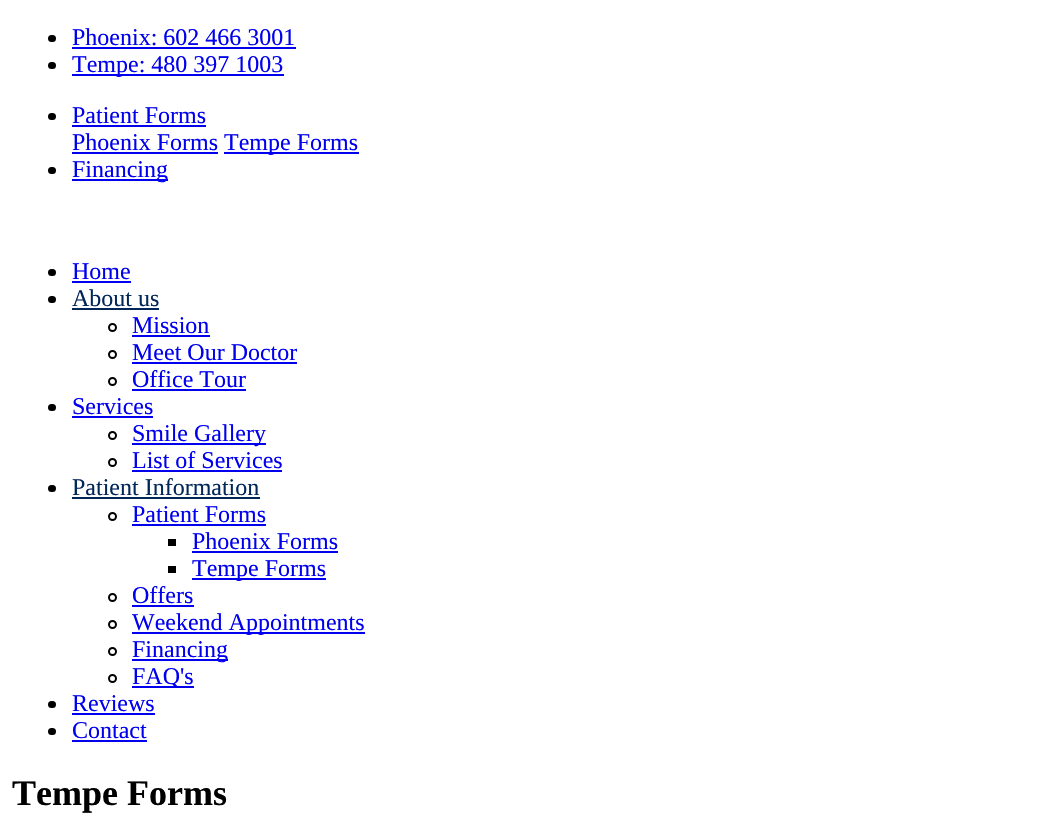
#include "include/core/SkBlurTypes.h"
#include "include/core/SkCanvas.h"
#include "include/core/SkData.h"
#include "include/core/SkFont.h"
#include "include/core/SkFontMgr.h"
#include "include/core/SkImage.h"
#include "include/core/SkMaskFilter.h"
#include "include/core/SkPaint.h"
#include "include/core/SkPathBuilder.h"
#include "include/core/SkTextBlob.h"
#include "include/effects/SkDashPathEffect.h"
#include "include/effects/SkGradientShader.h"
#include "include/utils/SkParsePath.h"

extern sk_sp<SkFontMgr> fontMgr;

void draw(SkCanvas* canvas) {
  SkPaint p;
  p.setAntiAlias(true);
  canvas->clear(SK_ColorWHITE);
  p.setColor(SK_ColorBLACK);
  canvas->drawRoundRect(SkRect::MakeLTRB(48, 35, 56, 42), 3.5f, 3.5f, p);
  p.setColor(SkColorSetRGB(0, 0, 238));
  canvas->drawRect(SkRect::MakeLTRB(72, 47, 296, 49), p);
  p.setColor(SK_ColorBLACK);
  canvas->drawRoundRect(SkRect::MakeLTRB(48, 62, 56, 69), 3.5f, 3.5f, p);
  p.setColor(SkColorSetRGB(0, 0, 238));
  canvas->drawRect(SkRect::MakeLTRB(72, 74, 284, 76), p);
  p.setColor(SK_ColorBLACK);
  canvas->drawRoundRect(SkRect::MakeLTRB(48, 113, 56, 120), 3.5f, 3.5f, p);
  p.setColor(SkColorSetRGB(0, 0, 238));
  canvas->drawRect(SkRect::MakeLTRB(72, 125, 206, 127), p);
  canvas->drawRect(SkRect::MakeLTRB(72, 152, 218, 154), p);
  canvas->drawRect(SkRect::MakeLTRB(224, 152, 359, 154), p);
  p.setColor(SK_ColorBLACK);
  canvas->drawRoundRect(SkRect::MakeLTRB(48, 167, 56, 174), 3.5f, 3.5f, p);
  p.setColor(SkColorSetRGB(0, 0, 238));
  canvas->drawRect(SkRect::MakeLTRB(72, 179, 168, 181), p);
  p.setColor(SK_ColorBLACK);
  canvas->drawRoundRect(SkRect::MakeLTRB(48, 269, 56, 276), 3.5f, 3.5f, p);
  p.setColor(SkColorSetRGB(0, 0, 238));
  canvas->drawRect(SkRect::MakeLTRB(72, 281, 131, 283), p);
  p.setColor(SK_ColorBLACK);
  canvas->drawRoundRect(SkRect::MakeLTRB(48, 296, 56, 303), 3.5f, 3.5f, p);
  p.setColor(SkColorSetRGB(1, 39, 89));
  canvas->drawRect(SkRect::MakeLTRB(72, 308, 159, 310), p);
  p.setStyle(SkPaint::kStroke_Style);
  p.setStrokeWidth(2);
  p.setColor(SK_ColorBLACK);
  canvas->drawCircle(112.5f, 327.5f, 3.5f, p);
  p.setStyle(SkPaint::kFill_Style);
  p.setColor(SkColorSetRGB(0, 0, 238));
  canvas->drawRect(SkRect::MakeLTRB(132, 335, 210, 337), p);
  p.setStyle(SkPaint::kStroke_Style);
  p.setColor(SK_ColorBLACK);
  canvas->drawCircle(112.5f, 354.5f, 3.5f, p);
  p.setStyle(SkPaint::kFill_Style);
  p.setColor(SkColorSetRGB(0, 0, 238));
  canvas->drawRect(SkRect::MakeLTRB(132, 362, 297, 364), p);
  p.setStyle(SkPaint::kStroke_Style);
  p.setColor(SK_ColorBLACK);
  canvas->drawCircle(112.5f, 381.5f, 3.5f, p);
  p.setStyle(SkPaint::kFill_Style);
  p.setColor(SkColorSetRGB(0, 0, 238));
  canvas->drawRect(SkRect::MakeLTRB(132, 389, 246, 391), p);
  p.setColor(SK_ColorBLACK);
  canvas->drawRoundRect(SkRect::MakeLTRB(48, 404, 56, 411), 3.5f, 3.5f, p);
  p.setColor(SkColorSetRGB(0, 0, 238));
  canvas->drawRect(SkRect::MakeLTRB(72, 416, 153, 418), p);
  p.setStyle(SkPaint::kStroke_Style);
  p.setColor(SK_ColorBLACK);
  canvas->drawCircle(112.5f, 435.5f, 3.5f, p);
  p.setStyle(SkPaint::kFill_Style);
  p.setColor(SkColorSetRGB(0, 0, 238));
  canvas->drawRect(SkRect::MakeLTRB(132, 443, 266, 445), p);
  p.setStyle(SkPaint::kStroke_Style);
  p.setColor(SK_ColorBLACK);
  canvas->drawCircle(112.5f, 462.5f, 3.5f, p);
  p.setStyle(SkPaint::kFill_Style);
  p.setColor(SkColorSetRGB(0, 0, 238));
  canvas->drawRect(SkRect::MakeLTRB(132, 470, 282, 472), p);
  p.setColor(SK_ColorBLACK);
  canvas->drawRoundRect(SkRect::MakeLTRB(48, 485, 56, 492), 3.5f, 3.5f, p);
  p.setColor(SkColorSetRGB(1, 39, 89));
  canvas->drawRect(SkRect::MakeLTRB(72, 497, 260, 499), p);
  p.setStyle(SkPaint::kStroke_Style);
  p.setColor(SK_ColorBLACK);
  canvas->drawCircle(112.5f, 516.5f, 3.5f, p);
  p.setStyle(SkPaint::kFill_Style);
  p.setColor(SkColorSetRGB(0, 0, 238));
  canvas->drawRect(SkRect::MakeLTRB(132, 524, 266, 526), p);
  p.setColor(SK_ColorBLACK);
  canvas->drawRect(SkRect::MakeLTRB(168, 539, 176, 546), p);
  p.setColor(SkColorSetRGB(0, 0, 238));
  canvas->drawRect(SkRect::MakeLTRB(192, 551, 338, 553), p);
  p.setColor(SK_ColorBLACK);
  canvas->drawRect(SkRect::MakeLTRB(168, 566, 176, 573), p);
  p.setColor(SkColorSetRGB(0, 0, 238));
  canvas->drawRect(SkRect::MakeLTRB(192, 578, 326, 580), p);
  p.setStyle(SkPaint::kStroke_Style);
  p.setColor(SK_ColorBLACK);
  canvas->drawCircle(112.5f, 597.5f, 3.5f, p);
  p.setStyle(SkPaint::kFill_Style);
  p.setColor(SkColorSetRGB(0, 0, 238));
  canvas->drawRect(SkRect::MakeLTRB(132, 605, 194, 607), p);
  p.setStyle(SkPaint::kStroke_Style);
  p.setColor(SK_ColorBLACK);
  canvas->drawCircle(112.5f, 624.5f, 3.5f, p);
  p.setStyle(SkPaint::kFill_Style);
  p.setColor(SkColorSetRGB(0, 0, 238));
  canvas->drawRect(SkRect::MakeLTRB(132, 632, 365, 634), p);
  p.setStyle(SkPaint::kStroke_Style);
  p.setColor(SK_ColorBLACK);
  canvas->drawCircle(112.5f, 651.5f, 3.5f, p);
  p.setStyle(SkPaint::kFill_Style);
  p.setColor(SkColorSetRGB(0, 0, 238));
  canvas->drawRect(SkRect::MakeLTRB(132, 659, 228, 661), p);
  p.setStyle(SkPaint::kStroke_Style);
  p.setColor(SK_ColorBLACK);
  canvas->drawCircle(112.5f, 678.5f, 3.5f, p);
  p.setStyle(SkPaint::kFill_Style);
  p.setColor(SkColorSetRGB(0, 0, 238));
  canvas->drawRect(SkRect::MakeLTRB(132, 686, 194, 688), p);
  p.setColor(SK_ColorBLACK);
  canvas->drawRoundRect(SkRect::MakeLTRB(48, 701, 56, 708), 3.5f, 3.5f, p);
  p.setColor(SkColorSetRGB(0, 0, 238));
  canvas->drawRect(SkRect::MakeLTRB(72, 713, 155, 715), p);
  p.setColor(SK_ColorBLACK);
  canvas->drawRoundRect(SkRect::MakeLTRB(48, 728, 56, 735), 3.5f, 3.5f, p);
  p.setColor(SkColorSetRGB(0, 0, 238));
  canvas->drawRect(SkRect::MakeLTRB(72, 740, 147, 742), p);
  SkFont font1(fontMgr->matchFamilyStyle("Liberation Serif", SkFontStyle::Normal()), 24);
  font1.setSubpixel(true);
  canvas->drawString("Phoenix: 602 466 3001", 72, 45, font1, p);
  canvas->drawString("Tempe: 480 397 1003", 72, 72, font1, p);
  canvas->drawString("Patient Forms", 72, 123, font1, p);
  canvas->drawString("Phoenix Forms", 72, 150, font1, p);
  canvas->drawString("Tempe Forms", 224, 150, font1, p);
  canvas->drawString("Financing", 72, 177, font1, p);
  canvas->drawString("Home", 72, 279, font1, p);
  p.setColor(SkColorSetRGB(1, 39, 89));
  canvas->drawString("About us", 72, 306, font1, p);
  p.setColor(SkColorSetRGB(0, 0, 238));
  canvas->drawString("Mission", 132, 333, font1, p);
  canvas->drawString("Meet Our Doctor", 132, 360, font1, p);
  canvas->drawString("Office Tour", 132, 387, font1, p);
  canvas->drawString("Services", 72, 414, font1, p);
  canvas->drawString("Smile Gallery", 132, 441, font1, p);
  canvas->drawString("List of Services", 132, 468, font1, p);
  p.setColor(SkColorSetRGB(1, 39, 89));
  canvas->drawString("Patient Information", 72, 495, font1, p);
  p.setColor(SkColorSetRGB(0, 0, 238));
  canvas->drawString("Patient Forms", 132, 522, font1, p);
  canvas->drawString("Phoenix Forms", 192, 549, font1, p);
  canvas->drawString("Tempe Forms", 192, 576, font1, p);
  canvas->drawString("Offers", 132, 603, font1, p);
  canvas->drawString("Weekend Appointments", 132, 630, font1, p);
  canvas->drawString("Financing", 132, 657, font1, p);
  canvas->drawString("FAQ's", 132, 684, font1, p);
  canvas->drawString("Reviews", 72, 711, font1, p);
  canvas->drawString("Contact", 72, 738, font1, p);
  SkFont font2(fontMgr->matchFamilyStyle("Liberation Serif", SkFontStyle::Bold()), 36);
  font2.setSubpixel(true);
  p.setColor(SK_ColorBLACK);
  canvas->drawString("Tempe Forms", 12, 805, font2, p);
}
